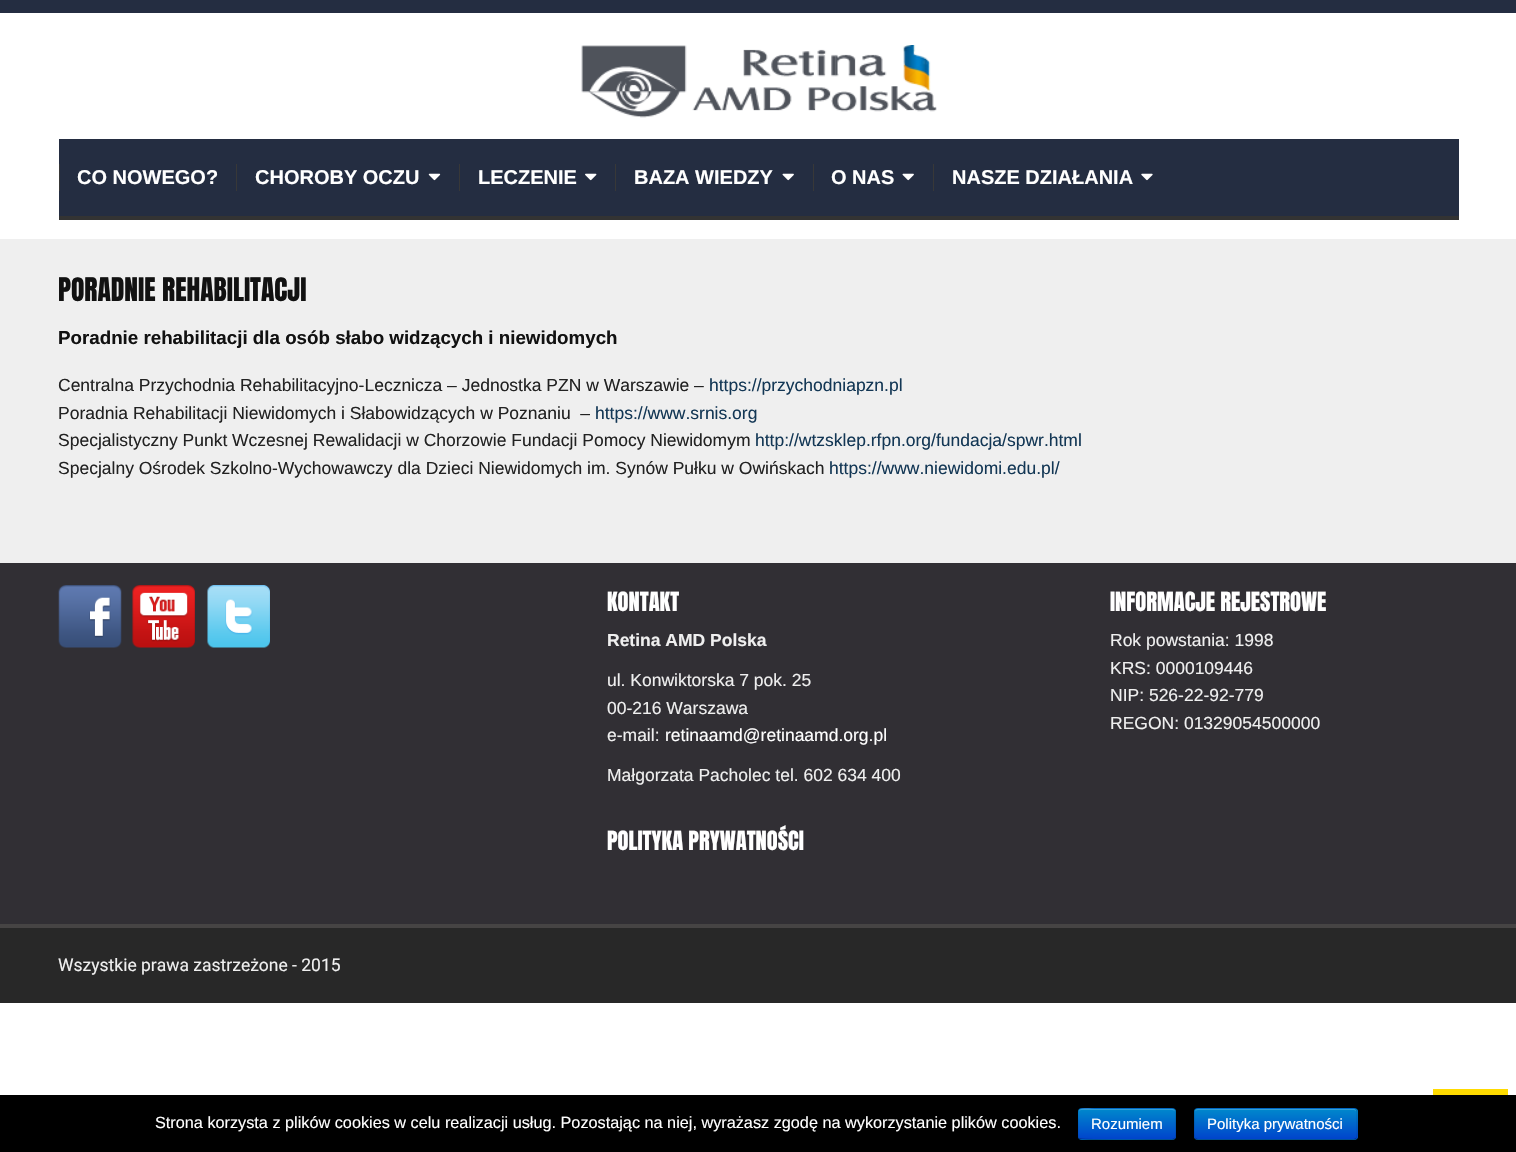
#include "include/core/SkBlurTypes.h"
#include "include/core/SkCanvas.h"
#include "include/core/SkData.h"
#include "include/core/SkFont.h"
#include "include/core/SkFontMgr.h"
#include "include/core/SkImage.h"
#include "include/core/SkMaskFilter.h"
#include "include/core/SkPaint.h"
#include "include/core/SkPathBuilder.h"
#include "include/core/SkTextBlob.h"
#include "include/effects/SkDashPathEffect.h"
#include "include/effects/SkGradientShader.h"
#include "include/utils/SkParsePath.h"

extern sk_sp<SkFontMgr> fontMgr;

void draw(SkCanvas* canvas) {
  SkPaint p;
  p.setAntiAlias(true);
  canvas->clear(SK_ColorWHITE);
  p.setColor(SkColorSetRGB(36, 45, 65));
  canvas->drawRect(SkRect::MakeLTRB(0, 0, 1516, 13), p);
  canvas->drawImageRect(SkImages::DeferredFromEncodedData(SkData::MakeFromFileName("images/1.png")), SkRect::MakeLTRB(581, 45, 937, 118), SkSamplingOptions());
  canvas->drawRect(SkRect::MakeLTRB(59, 139, 1459, 216), p);
  p.setColor(SkColorSetRGB(56, 56, 56));
  canvas->drawRect(SkRect::MakeLTRB(59, 164, 60, 191), p);
  canvas->drawRect(SkRect::MakeLTRB(236, 164, 237, 191), p);
  canvas->drawImageRect(SkImages::DeferredFromEncodedData(SkData::MakeFromFileName("images/2.png")), SkRect::MakeLTRB(428, 173, 441, 181), SkSamplingOptions());
  canvas->drawRect(SkRect::MakeLTRB(459, 164, 460, 191), p);
  canvas->drawImageRect(SkImages::DeferredFromEncodedData(SkData::MakeFromFileName("images/3.png")), SkRect::MakeLTRB(585, 173, 597, 181), SkSamplingOptions());
  canvas->drawRect(SkRect::MakeLTRB(615, 164, 616, 191), p);
  canvas->drawImageRect(SkImages::DeferredFromEncodedData(SkData::MakeFromFileName("images/4.png")), SkRect::MakeLTRB(782, 173, 794, 181), SkSamplingOptions());
  canvas->drawRect(SkRect::MakeLTRB(813, 164, 814, 191), p);
  canvas->drawImageRect(SkImages::DeferredFromEncodedData(SkData::MakeFromFileName("images/4.png")), SkRect::MakeLTRB(902, 173, 914, 181), SkSamplingOptions());
  canvas->drawRect(SkRect::MakeLTRB(933, 164, 934, 191), p);
  canvas->drawImageRect(SkImages::DeferredFromEncodedData(SkData::MakeFromFileName("images/5.png")), SkRect::MakeLTRB(1141, 173, 1153, 181), SkSamplingOptions());
  p.setColor(SkColorSetRGB(51, 51, 51));
  canvas->drawRect(SkRect::MakeLTRB(59, 216, 1459, 220), p);
  p.setColor(SkColorSetRGB(239, 239, 239));
  canvas->drawRect(SkRect::MakeLTRB(0, 239, 1516, 563), p);
  p.setColor(SkColorSetRGB(49, 47, 52));
  canvas->drawRect(SkRect::MakeLTRB(0, 563, 1516, 924), p);
  p.setColor(SkColorSetRGB(70, 68, 68));
  canvas->drawRect(SkRect::MakeLTRB(0, 924, 1516, 928), p);
  canvas->drawImageRect(SkImages::DeferredFromEncodedData(SkData::MakeFromFileName("images/6.png")), SkRect::MakeLTRB(58, 585, 122, 648), SkSamplingOptions());
  canvas->drawImageRect(SkImages::DeferredFromEncodedData(SkData::MakeFromFileName("images/7.png")), SkRect::MakeLTRB(132, 585, 195, 648), SkSamplingOptions());
  canvas->drawImageRect(SkImages::DeferredFromEncodedData(SkData::MakeFromFileName("images/8.png")), SkRect::MakeLTRB(207, 585, 270, 648), SkSamplingOptions());
  p.setColor(SkColorSetRGB(40, 40, 40));
  canvas->drawRect(SkRect::MakeLTRB(0, 928, 1516, 1003), p);
  p.setColor(SkColorSetRGB(255, 219, 0));
  canvas->drawRect(SkRect::MakeLTRB(1433, 1089, 1508, 1095), p);
  p.setColor(SK_ColorBLACK);
  canvas->drawRect(SkRect::MakeLTRB(0, 1095, 1516, 1152), p);
  p.setColor(SkColorSetRGB(0, 109, 204));
  canvas->drawRoundRect(SkRect::MakeLTRB(1078, 1108, 1176, 1140), 4, 4, p);
  canvas->save();
  canvas->clipPath(SkPathBuilder().moveTo(1082, 1108).lineTo(1172, 1108).cubicTo(1174, 1108, 1176, 1110, 1176, 1112).lineTo(1176, 1136).cubicTo(1176, 1138, 1174, 1140, 1172, 1140).lineTo(1082, 1140).cubicTo(1080, 1140, 1078, 1138, 1078, 1136).lineTo(1078, 1112).cubicTo(1078, 1110, 1080, 1108, 1082, 1108).close().detach(), true);
  {
    const SkColor colors[] = {SkColorSetRGB(0, 136, 204), SkColorSetRGB(0, 68, 204)};
    const float stops[] = {0, 1};
    const SkPoint ends[] = {{1127, 1109}, {1127, 1139}};
    p.setShader(SkGradientShader::MakeLinear(ends, colors, stops, 2, SkTileMode::kClamp));
    p.setAlpha(255);
  }
  canvas->drawRect(SkRect::MakeLTRB(1078, 1109, 1176, 1139), p);
  canvas->restore();
  p.setShader(nullptr);
  p.setColor(SkColorSetARGB(51, 255, 255, 255));
  canvas->drawPath(SkPathBuilder().moveTo(1081, 1110).lineTo(1172, 1110).cubicTo(1174, 1110, 1175, 1111, 1175, 1112).cubicTo(1175, 1111, 1175, 1110, 1173, 1109).lineTo(1097, 1109).cubicTo(1091, 1109, 1079, 1106, 1079, 1112).cubicTo(1079, 1111, 1080, 1110, 1081, 1110).close().detach(), p);
  p.setStyle(SkPaint::kStroke_Style);
  p.setStrokeWidth(1.2f);
  p.setColor(SkColorSetARGB(64, 0, 0, 0));
  canvas->drawPath(SkPathBuilder().moveTo(1174.5f, 1138.5f).lineTo(1172.5f, 1139.5f).lineTo(1157.5f, 1139.5f).cubicTo(1149, 1139.5f, 1081.5f, 1140.5f, 1079.5f, 1138.5f).lineTo(1079, 1138.5f).detach(), p);
  p.setColor(SkColorSetARGB(26, 0, 0, 0));
  canvas->drawPath(SkPathBuilder().moveTo(1079, 1138.5f).cubicTo(1077, 1136.5f, 1078, 1130.5f, 1078, 1128).cubicTo(1078, 1105, 1073.5f, 1108, 1096.5f, 1108).lineTo(1157.5f, 1108).cubicTo(1178.5f, 1108, 1175.5f, 1104.5f, 1175.5f, 1124).cubicTo(1175.5f, 1126.5f, 1177, 1136.5f, 1174.5f, 1138.5f).detach(), p);
  p.setStyle(SkPaint::kFill_Style);
  p.setColor(SkColorSetRGB(0, 109, 204));
  canvas->drawRoundRect(SkRect::MakeLTRB(1194, 1108, 1358, 1140), 4, 4, p);
  canvas->save();
  canvas->clipPath(SkPathBuilder().moveTo(1198, 1108).lineTo(1354, 1108).cubicTo(1356, 1108, 1358, 1110, 1358, 1112).lineTo(1358, 1136).cubicTo(1358, 1138, 1356, 1140, 1354, 1140).lineTo(1198, 1140).cubicTo(1196, 1140, 1194, 1138, 1194, 1136).lineTo(1194, 1112).cubicTo(1194, 1110, 1196, 1108, 1198, 1108).close().detach(), true);
  {
    const SkColor colors[] = {SkColorSetRGB(0, 136, 204), SkColorSetRGB(0, 68, 204)};
    const float stops[] = {0, 1};
    const SkPoint ends[] = {{1276, 1109}, {1276, 1139}};
    p.setShader(SkGradientShader::MakeLinear(ends, colors, stops, 2, SkTileMode::kClamp));
    p.setAlpha(255);
  }
  canvas->drawRect(SkRect::MakeLTRB(1194, 1109, 1358, 1139), p);
  canvas->restore();
  p.setShader(nullptr);
  p.setColor(SkColorSetRGB(51, 159, 214));
  canvas->drawPath(SkPathBuilder().moveTo(1198, 1110).lineTo(1354, 1110).cubicTo(1355, 1110, 1356, 1111, 1356, 1112).cubicTo(1356, 1110, 1355, 1109, 1354, 1109).lineTo(1198, 1109).cubicTo(1196, 1109, 1195, 1110, 1195, 1112).cubicTo(1195, 1111, 1196, 1110, 1198, 1110).close().detach(), p);
  p.setStyle(SkPaint::kStroke_Style);
  p.setColor(SkColorSetARGB(64, 0, 0, 0));
  canvas->drawPath(SkPathBuilder().moveTo(1356, 1138.5f).lineTo(1354, 1139.5f).lineTo(1223.5f, 1139.5f).lineTo(1197.5f, 1139.5f).lineTo(1195.5f, 1138.5f).detach(), p);
  p.setColor(SkColorSetARGB(26, 0, 0, 0));
  canvas->drawPath(SkPathBuilder().moveTo(1195.5f, 1138.5f).cubicTo(1193, 1136.5f, 1194.5f, 1126.5f, 1194.5f, 1124).lineTo(1194.5f, 1115.5f).cubicTo(1194.5f, 1113, 1193.5f, 1108, 1197.5f, 1108).lineTo(1354, 1108).cubicTo(1357.5f, 1108, 1357, 1113, 1357, 1115.5f).lineTo(1357, 1124).cubicTo(1357, 1126.5f, 1358, 1136.5f, 1356, 1138.5f).detach(), p);
  SkFont font1(fontMgr->matchFamilyStyle("Liberation Sans", SkFontStyle::Bold()), 20);
  font1.setSubpixel(true);
  p.setStyle(SkPaint::kFill_Style);
  p.setColor(SK_ColorWHITE);
  canvas->drawString("CO NOWEGO?", 77, 184, font1, p);
  canvas->drawString("CHOROBY OCZU", 255, 184, font1, p);
  canvas->drawString("LECZENIE", 478, 184, font1, p);
  canvas->drawString("BAZA WIEDZY", 634, 184, font1, p);
  canvas->drawString("O NAS", 831, 184, font1, p);
  canvas->drawString("NASZE DZIAŁANIA", 952, 184, font1, p);
  SkFont font2(fontMgr->matchFamilyStyle("Anton", SkFontStyle::Normal()), 27.5f);
  font2.setSubpixel(true);
  p.setColor(SkColorSetRGB(17, 17, 17));
  canvas->drawString("PORADNIE REHABILITACJI", 58, 301, font2, p);
  SkFont font3(fontMgr->matchFamilyStyle("Liberation Sans", SkFontStyle::Bold()), 18.75f);
  font3.setSubpixel(true);
  canvas->drawString("Poradnie rehabilitacji dla osób słabo widzących i niewidomych", 58, 344, font3, p);
  SkFont font4(fontMgr->matchFamilyStyle("Liberation Sans", SkFontStyle::Normal()), 17.5f);
  font4.setSubpixel(true);
  p.setColor(SkColorSetRGB(34, 34, 34));
  canvas->drawString("Centralna Przychodnia Rehabilitacyjno-Lecznicza – Jednostka PZN w Warszawie –", 58, 391, font4, p);
  p.setColor(SkColorSetRGB(19, 55, 85));
  canvas->drawString("https://przychodniapzn.pl", 709, 391, font4, p);
  p.setColor(SkColorSetRGB(34, 34, 34));
  canvas->drawString("Poradnia Rehabilitacji Niewidomych i Słabowidzących w Poznaniu  –", 58, 419, font4, p);
  p.setColor(SkColorSetRGB(19, 55, 85));
  canvas->drawString("https://www.srnis.org", 595, 419, font4, p);
  p.setColor(SkColorSetRGB(34, 34, 34));
  canvas->drawString("Specjalistyczny Punkt Wczesnej Rewalidacji w Chorzowie Fundacji Pomocy Niewidomym", 58, 446, font4, p);
  p.setColor(SkColorSetRGB(19, 55, 85));
  canvas->drawString("http://wtzsklep.rfpn.org/fundacja/spwr.html", 755, 446, font4, p);
  p.setColor(SkColorSetRGB(34, 34, 34));
  canvas->drawString("Specjalny Ośrodek Szkolno-Wychowawczy dla Dzieci Niewidomych im. Synów Pułku w Owińskach", 58, 474, font4, p);
  p.setColor(SkColorSetRGB(19, 55, 85));
  canvas->drawString("https://www.niewidomi.edu.pl/", 829, 474, font4, p);
  SkFont font5(fontMgr->matchFamilyStyle("Anton", SkFontStyle::Normal()), 22.5f);
  font5.setSubpixel(true);
  p.setColor(SK_ColorWHITE);
  canvas->drawString("KONTAKT", 607, 611, font5, p);
  SkFont font6(fontMgr->matchFamilyStyle("Liberation Sans", SkFontStyle::Bold()), 17.5f);
  font6.setSubpixel(true);
  p.setColor(SkColorSetRGB(239, 239, 239));
  canvas->drawString("Retina AMD Polska", 607, 646, font6, p);
  canvas->drawString("ul. Konwiktorska 7 pok. 25", 607, 686, font4, p);
  canvas->drawString("00-216 Warszawa", 607, 714, font4, p);
  canvas->drawString("e-mail:", 607, 741, font4, p);
  p.setColor(SK_ColorWHITE);
  canvas->drawString("retinaamd@retinaamd.org.pl", 665, 741, font4, p);
  p.setColor(SkColorSetRGB(239, 239, 239));
  canvas->drawString("Małgorzata Pacholec tel. 602 634 400", 607, 781, font4, p);
  p.setColor(SK_ColorWHITE);
  canvas->drawString("POLITYKA PRYWATNOŚCI", 607, 850, font5, p);
  canvas->drawString("INFORMACJE REJESTROWE", 1110, 611, font5, p);
  p.setColor(SkColorSetRGB(239, 239, 239));
  canvas->drawString("Rok powstania: 1998", 1110, 646, font4, p);
  canvas->drawString("KRS: 0000109446", 1110, 674, font4, p);
  canvas->drawString("NIP: 526-22-92-779", 1110, 701, font4, p);
  canvas->drawString("REGON: 01329054500000", 1110, 729, font4, p);
  SkFont font7(fontMgr->matchFamilyStyle("Roboto", SkFontStyle::Normal()), 17.5f);
  font7.setSubpixel(true);
  canvas->drawString("Wszystkie prawa zastrzeżone - 2015", 58, 971, font7, p);
  SkFont font8(fontMgr->matchFamilyStyle("Liberation Sans", SkFontStyle::Normal()), 16.25f);
  font8.setSubpixel(true);
  p.setColor(SK_ColorWHITE);
  canvas->drawString("Strona korzysta z plików cookies w celu realizacji usług. Pozostając na niej, wyrażasz zgodę na wykorzystanie plików cookies.", 155, 1128, font8, p);
  SkFont font9(fontMgr->matchFamilyStyle("Liberation Sans", SkFontStyle::Normal()), 15);
  font9.setSubpixel(true);
  canvas->drawString("Rozumiem", 1091, 1129, font9, p);
  canvas->drawString("Polityka prywatności", 1207, 1129, font9, p);
}
